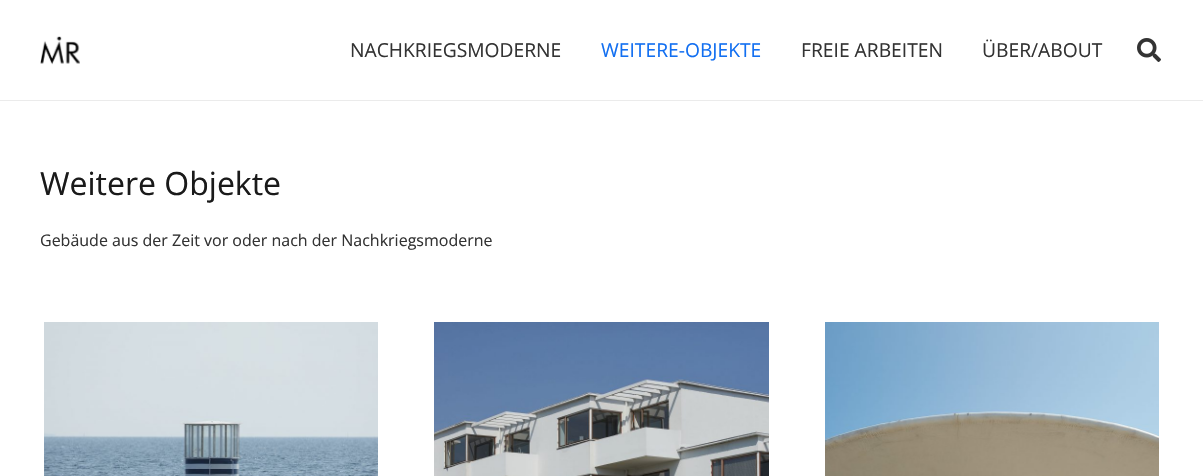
#include "include/core/SkBlurTypes.h"
#include "include/core/SkCanvas.h"
#include "include/core/SkData.h"
#include "include/core/SkFont.h"
#include "include/core/SkFontMgr.h"
#include "include/core/SkImage.h"
#include "include/core/SkMaskFilter.h"
#include "include/core/SkPaint.h"
#include "include/core/SkPathBuilder.h"
#include "include/core/SkTextBlob.h"
#include "include/effects/SkDashPathEffect.h"
#include "include/effects/SkGradientShader.h"
#include "include/utils/SkParsePath.h"

extern sk_sp<SkFontMgr> fontMgr;

void draw(SkCanvas* canvas) {
  SkPaint p;
  p.setAntiAlias(true);
  canvas->clear(SK_ColorWHITE);
  p.setColor(SkColorSetRGB(235, 235, 235));
  canvas->drawRect(SkRect::MakeLTRB(0, 100, 1203, 101), p);
  canvas->drawImageRect(SkImages::DeferredFromEncodedData(SkData::MakeFromFileName("images/1.png")), SkRect::MakeLTRB(40, 36, 80, 65), SkSamplingOptions());
  canvas->drawImageRect(SkImages::DeferredFromEncodedData(SkData::MakeFromFileName("images/2.png")), SkRect::MakeLTRB(1137, 38, 1161, 62), SkSamplingOptions());
  canvas->drawImageRect(SkImages::DeferredFromEncodedData(SkData::MakeFromFileName("images/3.png")), SkRect::MakeLTRB(44, 322, 378, 476), SkSamplingOptions());
  canvas->drawImageRect(SkImages::DeferredFromEncodedData(SkData::MakeFromFileName("images/4.png")), SkRect::MakeLTRB(434, 322, 769, 476), SkSamplingOptions());
  canvas->drawImageRect(SkImages::DeferredFromEncodedData(SkData::MakeFromFileName("images/5.png")), SkRect::MakeLTRB(825, 322, 1159, 476), SkSamplingOptions());
  SkFont font1(fontMgr->matchFamilyStyle("Open Sans", SkFontStyle::Normal()), 19.25f);
  font1.setSubpixel(true);
  p.setColor(SkColorSetRGB(51, 51, 51));
  canvas->drawString("NACHKRIEGSMODERNE", 350, 57, font1, p);
  p.setColor(SkColorSetRGB(18, 111, 241));
  canvas->drawString("WEITERE-OBJEKTE", 601, 57, font1, p);
  p.setColor(SkColorSetRGB(51, 51, 51));
  canvas->drawString("FREIE ARBEITEN", 801, 57, font1, p);
  canvas->drawString("ÜBER/ABOUT", 982, 57, font1, p);
  SkFont font2(fontMgr->matchFamilyStyle("Open Sans", SkFontStyle::Normal()), 32);
  font2.setSubpixel(true);
  p.setColor(SkColorSetRGB(26, 26, 26));
  canvas->drawString("Weitere Objekte", 40, 195, font2, p);
  SkFont font3(fontMgr->matchFamilyStyle("Open Sans", SkFontStyle::Normal()), 16);
  font3.setSubpixel(true);
  p.setColor(SkColorSetRGB(51, 51, 51));
  canvas->drawString("Gebäude aus der Zeit vor oder nach der Nachkriegsmoderne", 40, 246, font3, p);
}
